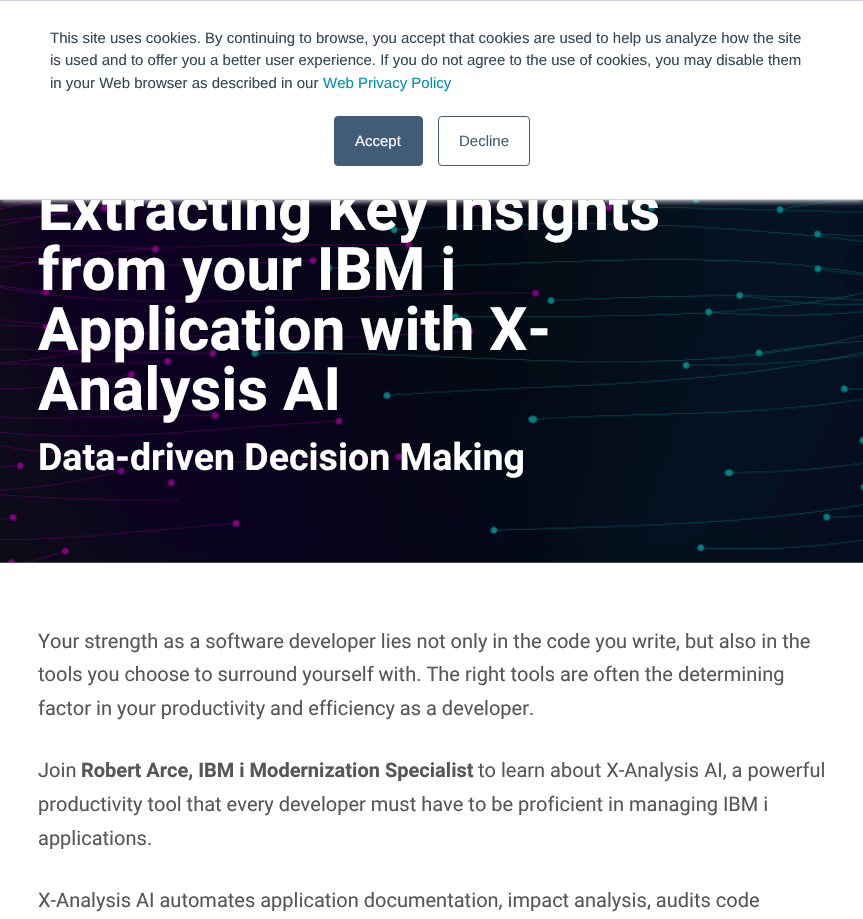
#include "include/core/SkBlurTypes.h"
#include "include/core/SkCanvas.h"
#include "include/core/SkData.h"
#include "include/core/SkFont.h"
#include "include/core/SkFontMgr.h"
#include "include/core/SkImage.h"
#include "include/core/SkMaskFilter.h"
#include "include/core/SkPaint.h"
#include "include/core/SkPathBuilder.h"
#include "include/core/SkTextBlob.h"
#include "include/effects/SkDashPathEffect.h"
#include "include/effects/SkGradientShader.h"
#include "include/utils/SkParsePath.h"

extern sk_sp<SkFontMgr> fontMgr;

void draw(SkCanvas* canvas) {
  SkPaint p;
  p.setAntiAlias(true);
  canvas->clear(SK_ColorWHITE);
  p.setColor(SkColorSetRGB(128, 128, 128));
  canvas->drawRect(SkRect::MakeLTRB(0, 562, 863, 563), p);
  canvas->drawImageRect(SkImages::DeferredFromEncodedData(SkData::MakeFromFileName("images/1.png")), SkRect::MakeLTRB(0, 200, 863, 563), SkSamplingOptions());
  p.setColor(SkColorSetRGB(234, 240, 246));
  p.setMaskFilter(SkMaskFilter::MakeBlur(kNormal_SkBlurStyle, 3));
  canvas->drawRect(SkRect::MakeLTRB(0, 1, 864, 201), p);
  p.setMaskFilter(nullptr);
  p.setColor(SK_ColorWHITE);
  canvas->drawRect(SkRect::MakeLTRB(0, 1, 863, 199), p);
  p.setColor(SkColorSetRGB(203, 214, 226));
  canvas->drawRect(SkRect::MakeLTRB(0, 0, 863, 1), p);
  p.setColor(SkColorSetRGB(66, 91, 118));
  canvas->drawRoundRect(SkRect::MakeLTRB(334.5f, 116.5f, 422.5f, 165.5f), 3.5f, 3.5f, p);
  p.setStyle(SkPaint::kStroke_Style);
  p.setStrokeWidth(1);
  canvas->drawRoundRect(SkRect::MakeLTRB(334.5f, 116.5f, 422.5f, 165.5f), 3.5f, 3.5f, p);
  canvas->drawRoundRect(SkRect::MakeLTRB(438.5f, 116.5f, 529.5f, 165.5f), 3.5f, 3.5f, p);
  SkFont font1(fontMgr->matchFamilyStyle("Liberation Sans", SkFontStyle::Normal()), 15);
  font1.setSubpixel(true);
  p.setStyle(SkPaint::kFill_Style);
  p.setColor(SkColorSetRGB(51, 71, 91));
  canvas->drawString("This site uses cookies. By continuing to browse, you accept that cookies are used to help us analyze how the site", 50, 43, font1, p);
  canvas->drawString("is used and to offer you a better user experience. If you do not agree to the use of cookies, you may disable them", 50, 65, font1, p);
  canvas->drawString("in your Web browser as described in our", 50, 88, font1, p);
  p.setColor(SkColorSetRGB(0, 145, 174));
  canvas->drawString("Web Privacy Policy", 323, 88, font1, p);
  p.setColor(SK_ColorWHITE);
  canvas->drawString("Accept", 355, 146, font1, p);
  p.setColor(SkColorSetRGB(66, 91, 118));
  canvas->drawString("Decline", 459, 146, font1, p);
  SkFont font2(fontMgr->matchFamilyStyle("Heebo", SkFontStyle::Bold()), 60);
  font2.setSubpixel(true);
  p.setColor(SK_ColorWHITE);
  canvas->drawString("Extracting Key Insights", 38, 230, font2, p);
  p.setColor(SkColorSetRGB(203, 214, 226));
  canvas->drawRect(SkRect::MakeLTRB(0, 199, 863, 200), p);
  p.setColor(SK_ColorWHITE);
  canvas->drawString("from your IBM i", 38, 290, font2, p);
  canvas->drawString("Application with X-", 38, 350, font2, p);
  canvas->drawString("Analysis AI", 38, 410, font2, p);
  SkFont font3(fontMgr->matchFamilyStyle("Heebo", SkFontStyle::Bold()), 37.5f);
  font3.setSubpixel(true);
  canvas->drawString("Data-driven Decision Making", 38, 470, font3, p);
  SkFont font4(fontMgr->matchFamilyStyle("Heebo", SkFontStyle::Normal()), 20);
  font4.setSubpixel(true);
  p.setColor(SkColorSetRGB(87, 87, 87));
  canvas->drawString("Your strength as a software developer lies not only in the code you write, but also in the", 38, 648, font4, p);
  canvas->drawString("tools you choose to surround yourself with. The right tools are often the determining", 38, 681, font4, p);
  canvas->drawString("factor in your productivity and efficiency as a developer.", 38, 715, font4, p);
  canvas->drawString("Join", 38, 777, font4, p);
  SkFont font5(fontMgr->matchFamilyStyle("Heebo", SkFontStyle::Bold()), 20);
  font5.setSubpixel(true);
  canvas->drawString("Robert Arce, IBM i Modernization Specialist", 81, 777, font5, p);
  canvas->drawString("to learn about X-Analysis AI, a powerful", 478, 777, font4, p);
  canvas->drawString("productivity tool that every developer must have to be proficient in managing IBM i", 38, 811, font4, p);
  canvas->drawString("applications.", 38, 845, font4, p);
  canvas->drawString("X-Analysis AI automates application documentation, impact analysis, audits code", 38, 907, font4, p);
}
